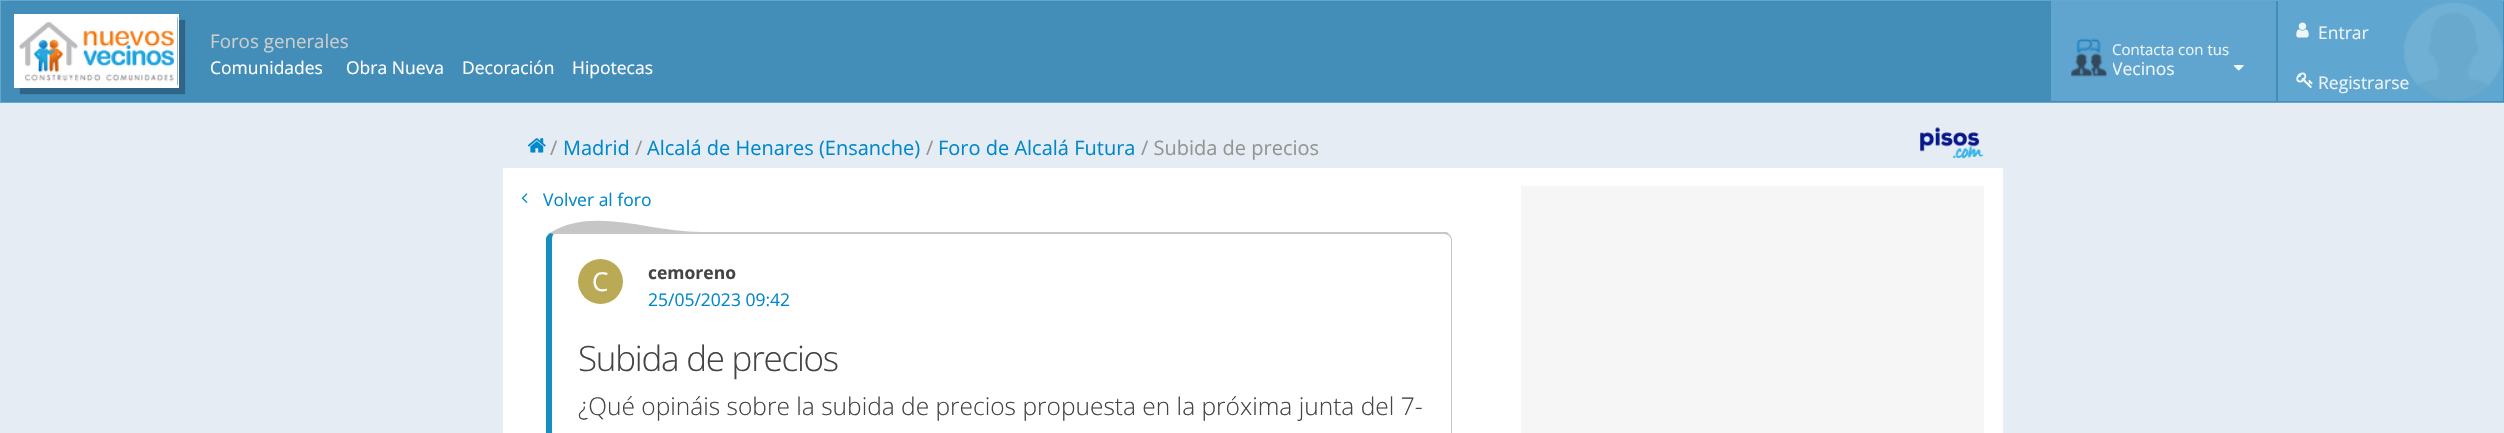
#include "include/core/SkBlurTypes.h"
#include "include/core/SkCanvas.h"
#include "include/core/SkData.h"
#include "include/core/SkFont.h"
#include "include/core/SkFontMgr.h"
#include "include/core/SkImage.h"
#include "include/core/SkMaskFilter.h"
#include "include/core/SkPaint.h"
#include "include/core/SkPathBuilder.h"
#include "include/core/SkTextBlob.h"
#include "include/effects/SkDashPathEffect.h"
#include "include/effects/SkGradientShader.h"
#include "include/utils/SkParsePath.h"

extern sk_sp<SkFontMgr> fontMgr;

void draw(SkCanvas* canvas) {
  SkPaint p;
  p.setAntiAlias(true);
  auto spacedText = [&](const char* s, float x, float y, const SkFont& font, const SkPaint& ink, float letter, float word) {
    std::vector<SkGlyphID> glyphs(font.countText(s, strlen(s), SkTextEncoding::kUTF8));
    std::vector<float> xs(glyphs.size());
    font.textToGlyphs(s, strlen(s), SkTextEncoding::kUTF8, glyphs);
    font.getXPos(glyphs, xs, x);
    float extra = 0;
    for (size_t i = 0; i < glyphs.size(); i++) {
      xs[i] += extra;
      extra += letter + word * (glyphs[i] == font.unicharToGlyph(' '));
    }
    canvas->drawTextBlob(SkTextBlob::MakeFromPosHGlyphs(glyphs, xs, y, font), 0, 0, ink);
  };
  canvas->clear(SkColorSetRGB(229, 236, 244));
  p.setColor(SkColorSetRGB(67, 142, 185));
  canvas->drawRect(SkRect::MakeLTRB(0.5f, 0.5f, 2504.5f, 102.5f), p);
  p.setStyle(SkPaint::kStroke_Style);
  p.setStrokeWidth(1);
  p.setColor(SkColorSetRGB(98, 168, 209));
  canvas->drawRect(SkRect::MakeLTRB(0.5f, 0.5f, 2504.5f, 102.5f), p);
  p.setStyle(SkPaint::kFill_Style);
  p.setColor(SK_ColorWHITE);
  canvas->drawRect(SkRect::MakeLTRB(14, 14, 179, 17), p);
  p.setColor(SkColorSetRGB(46, 101, 137));
  p.setMaskFilter(SkMaskFilter::MakeBlur(kNormal_SkBlurStyle, 0.5f));
  canvas->drawRect(SkRect::MakeLTRB(20, 20, 185, 94), p);
  p.setMaskFilter(nullptr);
  p.setColor(SK_ColorWHITE);
  canvas->drawRect(SkRect::MakeLTRB(178, 14, 179, 88), p);
  canvas->drawRect(SkRect::MakeLTRB(14, 85, 179, 88), p);
  canvas->drawRect(SkRect::MakeLTRB(14, 14, 17, 88), p);
  canvas->drawImageRect(SkImages::DeferredFromEncodedData(SkData::MakeFromFileName("images/1.png")), SkRect::MakeLTRB(17, 17, 178, 85), SkSamplingOptions());
  p.setColor(SkColorSetRGB(95, 165, 207));
  canvas->drawRect(SkRect::MakeLTRB(2051, 1, 2276, 101), p);
  canvas->drawImageRect(SkImages::DeferredFromEncodedData(SkData::MakeFromFileName("images/2.png")), SkRect::MakeLTRB(2071, 38, 2107, 77), SkSamplingOptions());
  canvas->drawImageRect(SkImages::DeferredFromEncodedData(SkData::MakeFromFileName("images/3.png")), SkRect::MakeLTRB(2233, 65, 2244, 71), SkSamplingOptions());
  canvas->drawImageRect(SkImages::DeferredFromEncodedData(SkData::MakeFromFileName("images/4.png")), SkRect::MakeLTRB(2403, 2, 2503, 100), SkSamplingOptions());
  p.setColor(SkColorSetARGB(230, 98, 168, 209));
  canvas->drawRect(SkRect::MakeLTRB(2278, 1, 2503, 51), p);
  canvas->drawImageRect(SkImages::DeferredFromEncodedData(SkData::MakeFromFileName("images/5.png")), SkRect::MakeLTRB(2296, 22, 2309, 38), SkSamplingOptions());
  canvas->drawRect(SkRect::MakeLTRB(2278, 51, 2503, 101), p);
  canvas->drawImageRect(SkImages::DeferredFromEncodedData(SkData::MakeFromFileName("images/6.png")), SkRect::MakeLTRB(2296, 72, 2313, 88), SkSamplingOptions());
  canvas->drawImageRect(SkImages::DeferredFromEncodedData(SkData::MakeFromFileName("images/7.png")), SkRect::MakeLTRB(528, 138, 546, 153), SkSamplingOptions());
  canvas->drawImageRect(SkImages::DeferredFromEncodedData(SkData::MakeFromFileName("images/8.png")), SkRect::MakeLTRB(1920, 127, 1984, 159), SkSamplingOptions());
  {
    const SkColor colors[] = {SK_ColorWHITE, SkColorSetRGB(249, 249, 249)};
    const float stops[] = {0.01f, 0.98f};
    const SkPoint ends[] = {{1252, 168}, {1253, 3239}};
    p.setShader(SkGradientShader::MakeLinear(ends, colors, stops, 2, SkTileMode::kClamp));
    p.setAlpha(255);
  }
  canvas->drawRect(SkRect::MakeLTRB(503, 168, 2003, 433), p);
  canvas->drawImageRect(SkImages::DeferredFromEncodedData(SkData::MakeFromFileName("images/9.png")), SkRect::MakeLTRB(521, 193, 528, 203), SkSamplingOptions());
  p.setShader(nullptr);
  p.setColor(SkColorSetRGB(198, 198, 198));
  canvas->drawPath(SkPathBuilder().moveTo(554, 234).lineTo(550, 233).cubicTo(592, 206, 650, 232, 701, 232).lineTo(1447, 232).lineTo(1450, 235).lineTo(1449, 236).cubicTo(1448, 235, 1446, 234, 1445, 234).close().detach(), p);
  canvas->drawPath(SkPathBuilder().moveTo(1450, 235).cubicTo(1451, 236, 1452, 238, 1452, 240).lineTo(1452, 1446).cubicTo(1452, 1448, 1451, 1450, 1450, 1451).lineTo(1449, 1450).cubicTo(1450, 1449, 1451, 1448, 1451, 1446).lineTo(1451, 240).cubicTo(1451, 238, 1450, 237, 1449, 236).close().detach(), p);
  p.setColor(SkColorSetRGB(21, 144, 189));
  canvas->drawPath(SkPathBuilder().moveTo(546, 238).cubicTo(547, 236, 548, 234, 550, 233).lineTo(554, 234).cubicTo(553, 234, 552, 237, 552, 240).lineTo(552, 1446).cubicTo(552, 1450, 553, 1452, 554, 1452).lineTo(555, 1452).lineTo(550, 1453).cubicTo(548, 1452, 547, 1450, 546, 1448).close().detach(), p);
  p.setColor(SkColorSetRGB(187, 170, 85));
  canvas->drawCircle(600.5f, 281.5f, 22.5f, p);
  p.setColor(SkColorSetRGB(246, 246, 246));
  canvas->drawRect(SkRect::MakeLTRB(1521, 186, 1984, 433), p);
  SkFont font1(fontMgr->matchFamilyStyle("Open Sans", SkFontStyle::Normal()), 18.75f);
  font1.setSubpixel(true);
  p.setColor(SkColorSetRGB(204, 204, 204));
  canvas->drawString("Foros generales", 210, 48, font1, p);
  SkFont font2(fontMgr->matchFamilyStyle("Open Sans", SkFontStyle::Normal()), 17.5f);
  font2.setSubpixel(true);
  p.setColor(SK_ColorWHITE);
  canvas->drawString("Comunidades", 210, 74, font2, p);
  canvas->drawString("Obra Nueva", 346, 74, font2, p);
  canvas->drawString("Decoración", 462, 74, font2, p);
  canvas->drawString("Hipotecas", 572, 74, font2, p);
  SkFont font3(fontMgr->matchFamilyStyle("Open Sans", SkFontStyle::Normal()), 15);
  font3.setSubpixel(true);
  p.setColor(SkColorSetRGB(236, 244, 248));
  canvas->drawString("Contacta con tus", 2112, 55, font3, p);
  canvas->save();
  canvas->clipRect(SkRect::MakeLTRB(2113, 39, 2228, 79));
  canvas->drawString("Vecinos", 2112, 75, font2, p);
  canvas->restore();
  canvas->drawString("Entrar", 2318, 39, font2, p);
  canvas->drawString("Registrarse", 2318, 89, font2, p);
  SkFont font4(fontMgr->matchFamilyStyle("Open Sans", SkFontStyle::Normal()), 20);
  font4.setSubpixel(true);
  p.setColor(SkColorSetRGB(148, 148, 148));
  canvas->drawString("/", 550, 155, font4, p);
  p.setColor(SkColorSetRGB(0, 136, 204));
  canvas->drawString("Madrid", 563, 155, font4, p);
  p.setColor(SkColorSetRGB(148, 148, 148));
  canvas->drawString("/", 635, 155, font4, p);
  p.setColor(SkColorSetRGB(0, 136, 204));
  canvas->drawString("Alcalá de Henares (Ensanche)", 647, 155, font4, p);
  p.setColor(SkColorSetRGB(148, 148, 148));
  canvas->drawString("/", 926, 155, font4, p);
  p.setColor(SkColorSetRGB(0, 136, 204));
  canvas->drawString("Foro de Alcalá Futura", 938, 155, font4, p);
  p.setColor(SkColorSetRGB(148, 148, 148));
  canvas->drawString("/ Subida de precios", 1141, 155, font4, p);
  p.setColor(SkColorSetRGB(0, 136, 204));
  canvas->drawString("Volver al foro", 543, 206, font2, p);
  SkFont font5(fontMgr->matchFamilyStyle("Open Sans", SkFontStyle::Normal()), 26);
  font5.setSubpixel(true);
  p.setColor(SK_ColorWHITE);
  canvas->drawString("C", 592, 291, font5, p);
  SkFont font6(fontMgr->matchFamilyStyle("Open Sans", SkFontStyle::Bold()), 17.5f);
  font6.setSubpixel(true);
  p.setColor(SkColorSetRGB(68, 68, 68));
  canvas->drawString("cemoreno", 648, 279, font6, p);
  p.setColor(SkColorSetRGB(0, 136, 204));
  canvas->drawString("25/05/2023 09:42", 648, 306, font2, p);
  SkFont font7(fontMgr->matchFamilyStyle("Open Sans", SkFontStyle(300, SkFontStyle::kNormal_Width, SkFontStyle::kUpright_Slant)), 35);
  font7.setSubpixel(true);
  p.setColor(SkColorSetRGB(68, 68, 68));
  spacedText("Subida de precios", 578, 371, font7, p, -1.25f, 0);
  SkFont font8(fontMgr->matchFamilyStyle("Open Sans", SkFontStyle(300, SkFontStyle::kNormal_Width, SkFontStyle::kUpright_Slant)), 24.5f);
  font8.setSubpixel(true);
  canvas->drawString("¿Qué opináis sobre la subida de precios propuesta en la próxima junta del 7-", 578, 415, font8, p);
}
